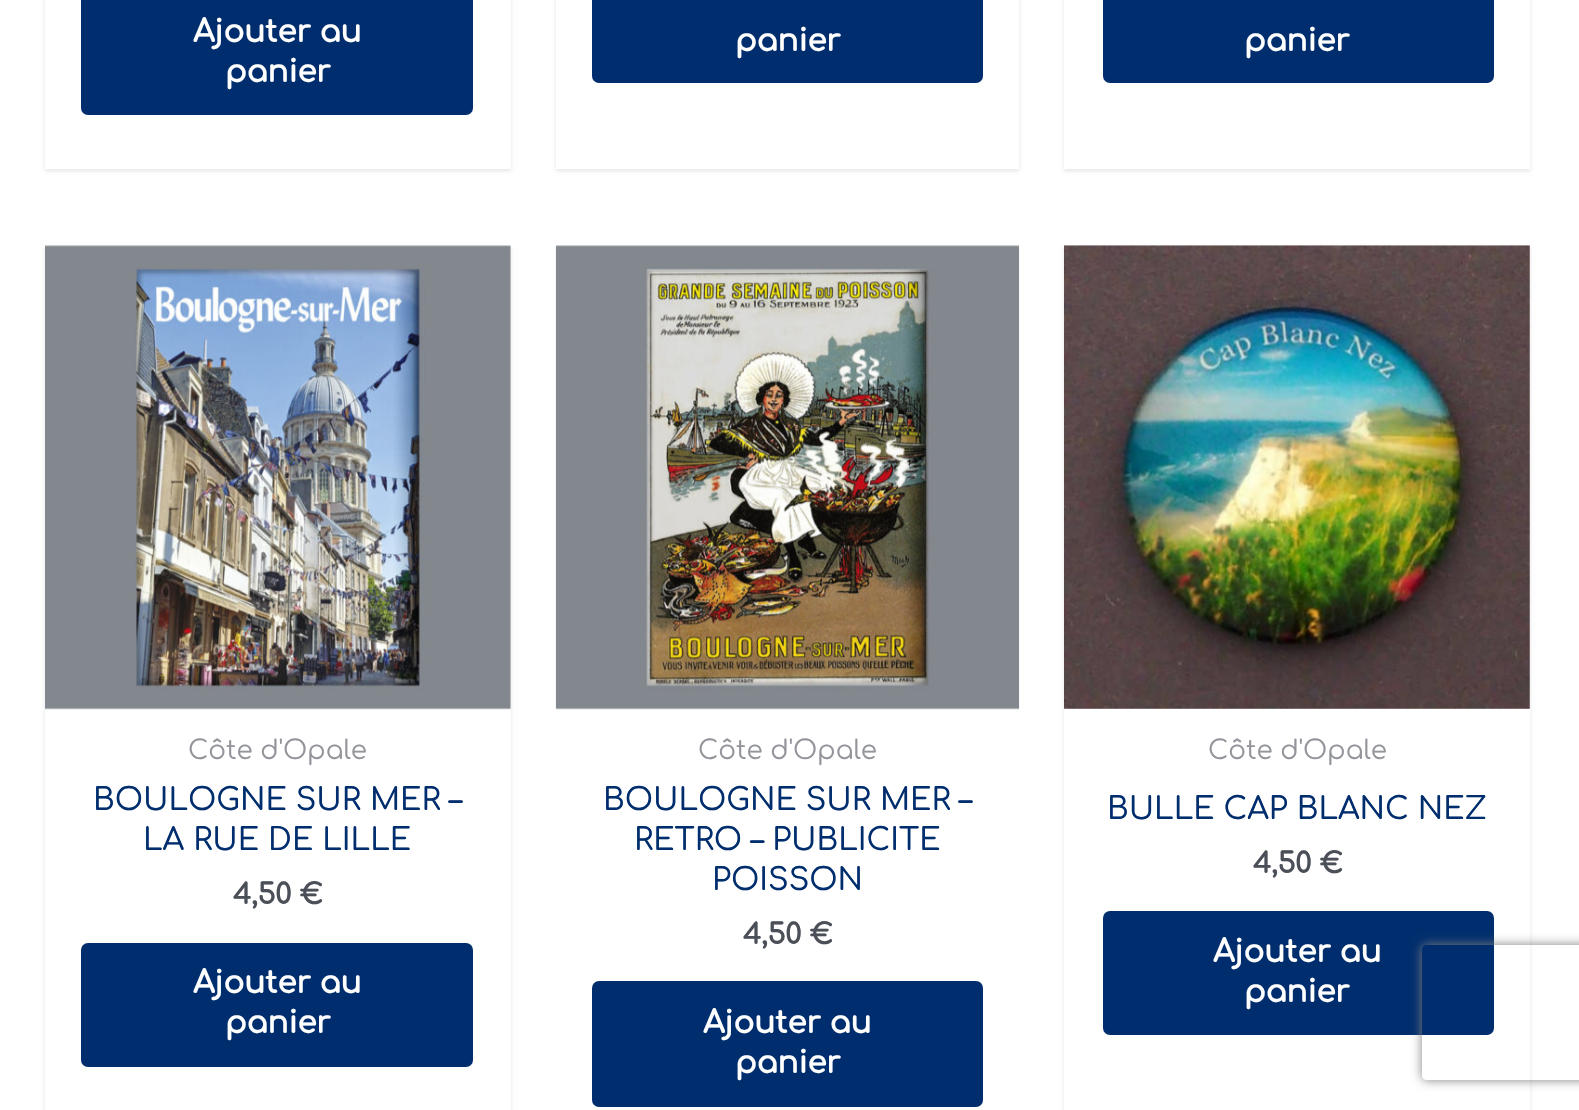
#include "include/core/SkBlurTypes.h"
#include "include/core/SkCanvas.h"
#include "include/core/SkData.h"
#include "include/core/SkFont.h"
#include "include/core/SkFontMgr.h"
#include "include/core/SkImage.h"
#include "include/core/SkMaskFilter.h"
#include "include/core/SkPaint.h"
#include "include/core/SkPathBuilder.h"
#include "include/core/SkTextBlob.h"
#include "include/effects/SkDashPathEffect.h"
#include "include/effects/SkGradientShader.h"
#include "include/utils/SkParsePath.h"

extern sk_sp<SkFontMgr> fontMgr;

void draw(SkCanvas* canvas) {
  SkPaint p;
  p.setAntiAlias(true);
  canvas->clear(SK_ColorWHITE);
  canvas->save();
  canvas->clipPath(SkPathBuilder(SkPathFillType::kEvenOdd).moveTo(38, 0).lineTo(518, 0).lineTo(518, 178).lineTo(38, 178).close().moveTo(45, -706).lineTo(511, -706).lineTo(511, 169).lineTo(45, 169).close().detach(), true);
  p.setColor(SkColorSetARGB(26, 0, 0, 0));
  p.setMaskFilter(SkMaskFilter::MakeBlur(kNormal_SkBlurStyle, 2));
  canvas->drawRect(SkRect::MakeLTRB(45, -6, 511, 171), p);
  p.setMaskFilter(nullptr);
  canvas->restore();
  p.setColor(SkColorSetRGB(0, 45, 109));
  canvas->drawRoundRect(SkRect::MakeLTRB(81, -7, 473, 115), 7, 7, p);
  canvas->save();
  canvas->clipPath(SkPathBuilder(SkPathFillType::kEvenOdd).moveTo(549, 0).lineTo(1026, 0).lineTo(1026, 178).lineTo(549, 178).close().moveTo(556, -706).lineTo(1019, -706).lineTo(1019, 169).lineTo(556, 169).close().detach(), true);
  p.setColor(SkColorSetARGB(26, 0, 0, 0));
  p.setMaskFilter(SkMaskFilter::MakeBlur(kNormal_SkBlurStyle, 2));
  canvas->drawRect(SkRect::MakeLTRB(556, -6, 1019, 171), p);
  p.setMaskFilter(nullptr);
  canvas->restore();
  p.setColor(SkColorSetRGB(0, 45, 109));
  canvas->drawRoundRect(SkRect::MakeLTRB(592, -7, 983, 83), 7, 7, p);
  canvas->save();
  canvas->clipPath(SkPathBuilder(SkPathFillType::kEvenOdd).moveTo(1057, 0).lineTo(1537, 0).lineTo(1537, 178).lineTo(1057, 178).close().moveTo(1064, -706).lineTo(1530, -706).lineTo(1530, 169).lineTo(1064, 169).close().detach(), true);
  p.setColor(SkColorSetARGB(26, 0, 0, 0));
  p.setMaskFilter(SkMaskFilter::MakeBlur(kNormal_SkBlurStyle, 2));
  canvas->drawRect(SkRect::MakeLTRB(1064, -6, 1530, 171), p);
  p.setMaskFilter(nullptr);
  canvas->restore();
  p.setColor(SkColorSetRGB(0, 45, 109));
  canvas->drawRoundRect(SkRect::MakeLTRB(1103, -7, 1494, 83), 7, 7, p);
  canvas->save();
  canvas->clipPath(SkPathBuilder(SkPathFillType::kEvenOdd).moveTo(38, 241).lineTo(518, 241).lineTo(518, 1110).lineTo(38, 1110).close().moveTo(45, 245).lineTo(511, 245).lineTo(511, 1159).lineTo(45, 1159).close().detach(), true);
  p.setColor(SkColorSetARGB(26, 0, 0, 0));
  p.setMaskFilter(SkMaskFilter::MakeBlur(kNormal_SkBlurStyle, 2));
  canvas->drawRect(SkRect::MakeLTRB(45, 248, 511, 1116), p);
  p.setMaskFilter(nullptr);
  canvas->restore();
  canvas->drawImageRect(SkImages::DeferredFromEncodedData(SkData::MakeFromFileName("images/1.png")), SkRect::MakeLTRB(45, 245, 511, 710), SkSamplingOptions());
  p.setColor(SkColorSetRGB(0, 45, 109));
  canvas->drawRoundRect(SkRect::MakeLTRB(81, 943, 473, 1067), 7, 7, p);
  canvas->drawImageRect(SkImages::DeferredFromEncodedData(SkData::MakeFromFileName("images/2.png")), SkRect::MakeLTRB(555, 245, 1020, 710), SkSamplingOptions());
  canvas->drawRoundRect(SkRect::MakeLTRB(592, 981, 983, 1107), 7, 7, p);
  canvas->save();
  canvas->clipPath(SkPathBuilder(SkPathFillType::kEvenOdd).moveTo(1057, 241).lineTo(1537, 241).lineTo(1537, 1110).lineTo(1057, 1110).close().moveTo(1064, 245).lineTo(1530, 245).lineTo(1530, 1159).lineTo(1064, 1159).close().detach(), true);
  p.setColor(SkColorSetARGB(26, 0, 0, 0));
  p.setMaskFilter(SkMaskFilter::MakeBlur(kNormal_SkBlurStyle, 2));
  canvas->drawRect(SkRect::MakeLTRB(1064, 248, 1530, 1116), p);
  p.setMaskFilter(nullptr);
  canvas->restore();
  canvas->drawImageRect(SkImages::DeferredFromEncodedData(SkData::MakeFromFileName("images/3.png")), SkRect::MakeLTRB(1064, 245, 1530, 709), SkSamplingOptions());
  p.setColor(SkColorSetRGB(0, 45, 109));
  canvas->drawRoundRect(SkRect::MakeLTRB(1103, 911, 1494, 1035), 7, 7, p);
  canvas->save();
  canvas->clipPath(SkPathBuilder(SkPathFillType::kEvenOdd).moveTo(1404, 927).lineTo(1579, 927).lineTo(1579, 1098).lineTo(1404, 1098).close().moveTo(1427, 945).lineTo(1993, 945).cubicTo(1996, 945, 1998, 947, 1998, 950).lineTo(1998, 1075).cubicTo(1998, 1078, 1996, 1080, 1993, 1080).lineTo(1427, 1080).cubicTo(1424, 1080, 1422, 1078, 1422, 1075).lineTo(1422, 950).cubicTo(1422, 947, 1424, 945, 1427, 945).close().detach(), true);
  p.setColor(SkColorSetRGB(128, 128, 128));
  p.setMaskFilter(SkMaskFilter::MakeBlur(kNormal_SkBlurStyle, 5.5f));
  canvas->drawRoundRect(SkRect::MakeLTRB(1422, 945, 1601, 1080), 5, 5, p);
  p.setMaskFilter(nullptr);
  canvas->restore();
  SkFont font1(fontMgr->matchFamilyStyle("Comfortaa", SkFontStyle::Bold()), 30.75f);
  font1.setSubpixel(true);
  p.setColor(SK_ColorWHITE);
  canvas->drawString("Ajouter au", 193, 42, font1, p);
  canvas->drawString("panier", 225, 82, font1, p);
  canvas->drawString("panier", 735, 51, font1, p);
  canvas->drawString("panier", 1244, 51, font1, p);
  SkFont font2(fontMgr->matchFamilyStyle("Comfortaa", SkFontStyle::Normal()), 26.25f);
  font2.setSubpixel(true);
  p.setColor(SkColorSetRGB(147, 149, 155));
  canvas->drawString("Côte d'Opale", 188, 759, font2, p);
  SkFont font3(fontMgr->matchFamilyStyle("Comfortaa", SkFontStyle(500, SkFontStyle::kNormal_Width, SkFontStyle::kUpright_Slant)), 30.75f);
  font3.setSubpixel(true);
  p.setColor(SkColorSetRGB(0, 45, 109));
  canvas->drawString("BOULOGNE SUR MER –", 93, 810, font3, p);
  canvas->drawString("LA RUE DE LILLE", 143, 850, font3, p);
  SkFont font4(fontMgr->matchFamilyStyle("Comfortaa", SkFontStyle::Bold()), 28);
  font4.setSubpixel(true);
  p.setColor(SkColorSetRGB(75, 79, 88));
  canvas->drawString("4,50 €", 233, 904, font4, p);
  p.setColor(SK_ColorWHITE);
  canvas->drawString("Ajouter au", 193, 993, font1, p);
  canvas->drawString("panier", 225, 1033, font1, p);
  p.setColor(SkColorSetRGB(147, 149, 155));
  canvas->drawString("Côte d'Opale", 698, 759, font2, p);
  p.setColor(SkColorSetRGB(0, 45, 109));
  canvas->drawString("BOULOGNE SUR MER –", 603, 810, font3, p);
  canvas->drawString("RETRO – PUBLICITE", 634, 850, font3, p);
  canvas->drawString("POISSON", 712, 890, font3, p);
  p.setColor(SkColorSetRGB(75, 79, 88));
  canvas->drawString("4,50 €", 743, 944, font4, p);
  p.setColor(SK_ColorWHITE);
  canvas->drawString("Ajouter au", 703, 1033, font1, p);
  canvas->drawString("panier", 735, 1073, font1, p);
  p.setColor(SkColorSetRGB(147, 149, 155));
  canvas->drawString("Côte d'Opale", 1208, 759, font2, p);
  p.setColor(SkColorSetRGB(0, 45, 109));
  canvas->drawString("BULLE CAP BLANC NEZ", 1107, 819, font3, p);
  p.setColor(SkColorSetRGB(75, 79, 88));
  canvas->drawString("4,50 €", 1253, 873, font4, p);
  p.setColor(SK_ColorWHITE);
  canvas->drawString("Ajouter au", 1213, 962, font1, p);
  canvas->drawString("panier", 1244, 1002, font1, p);
}
